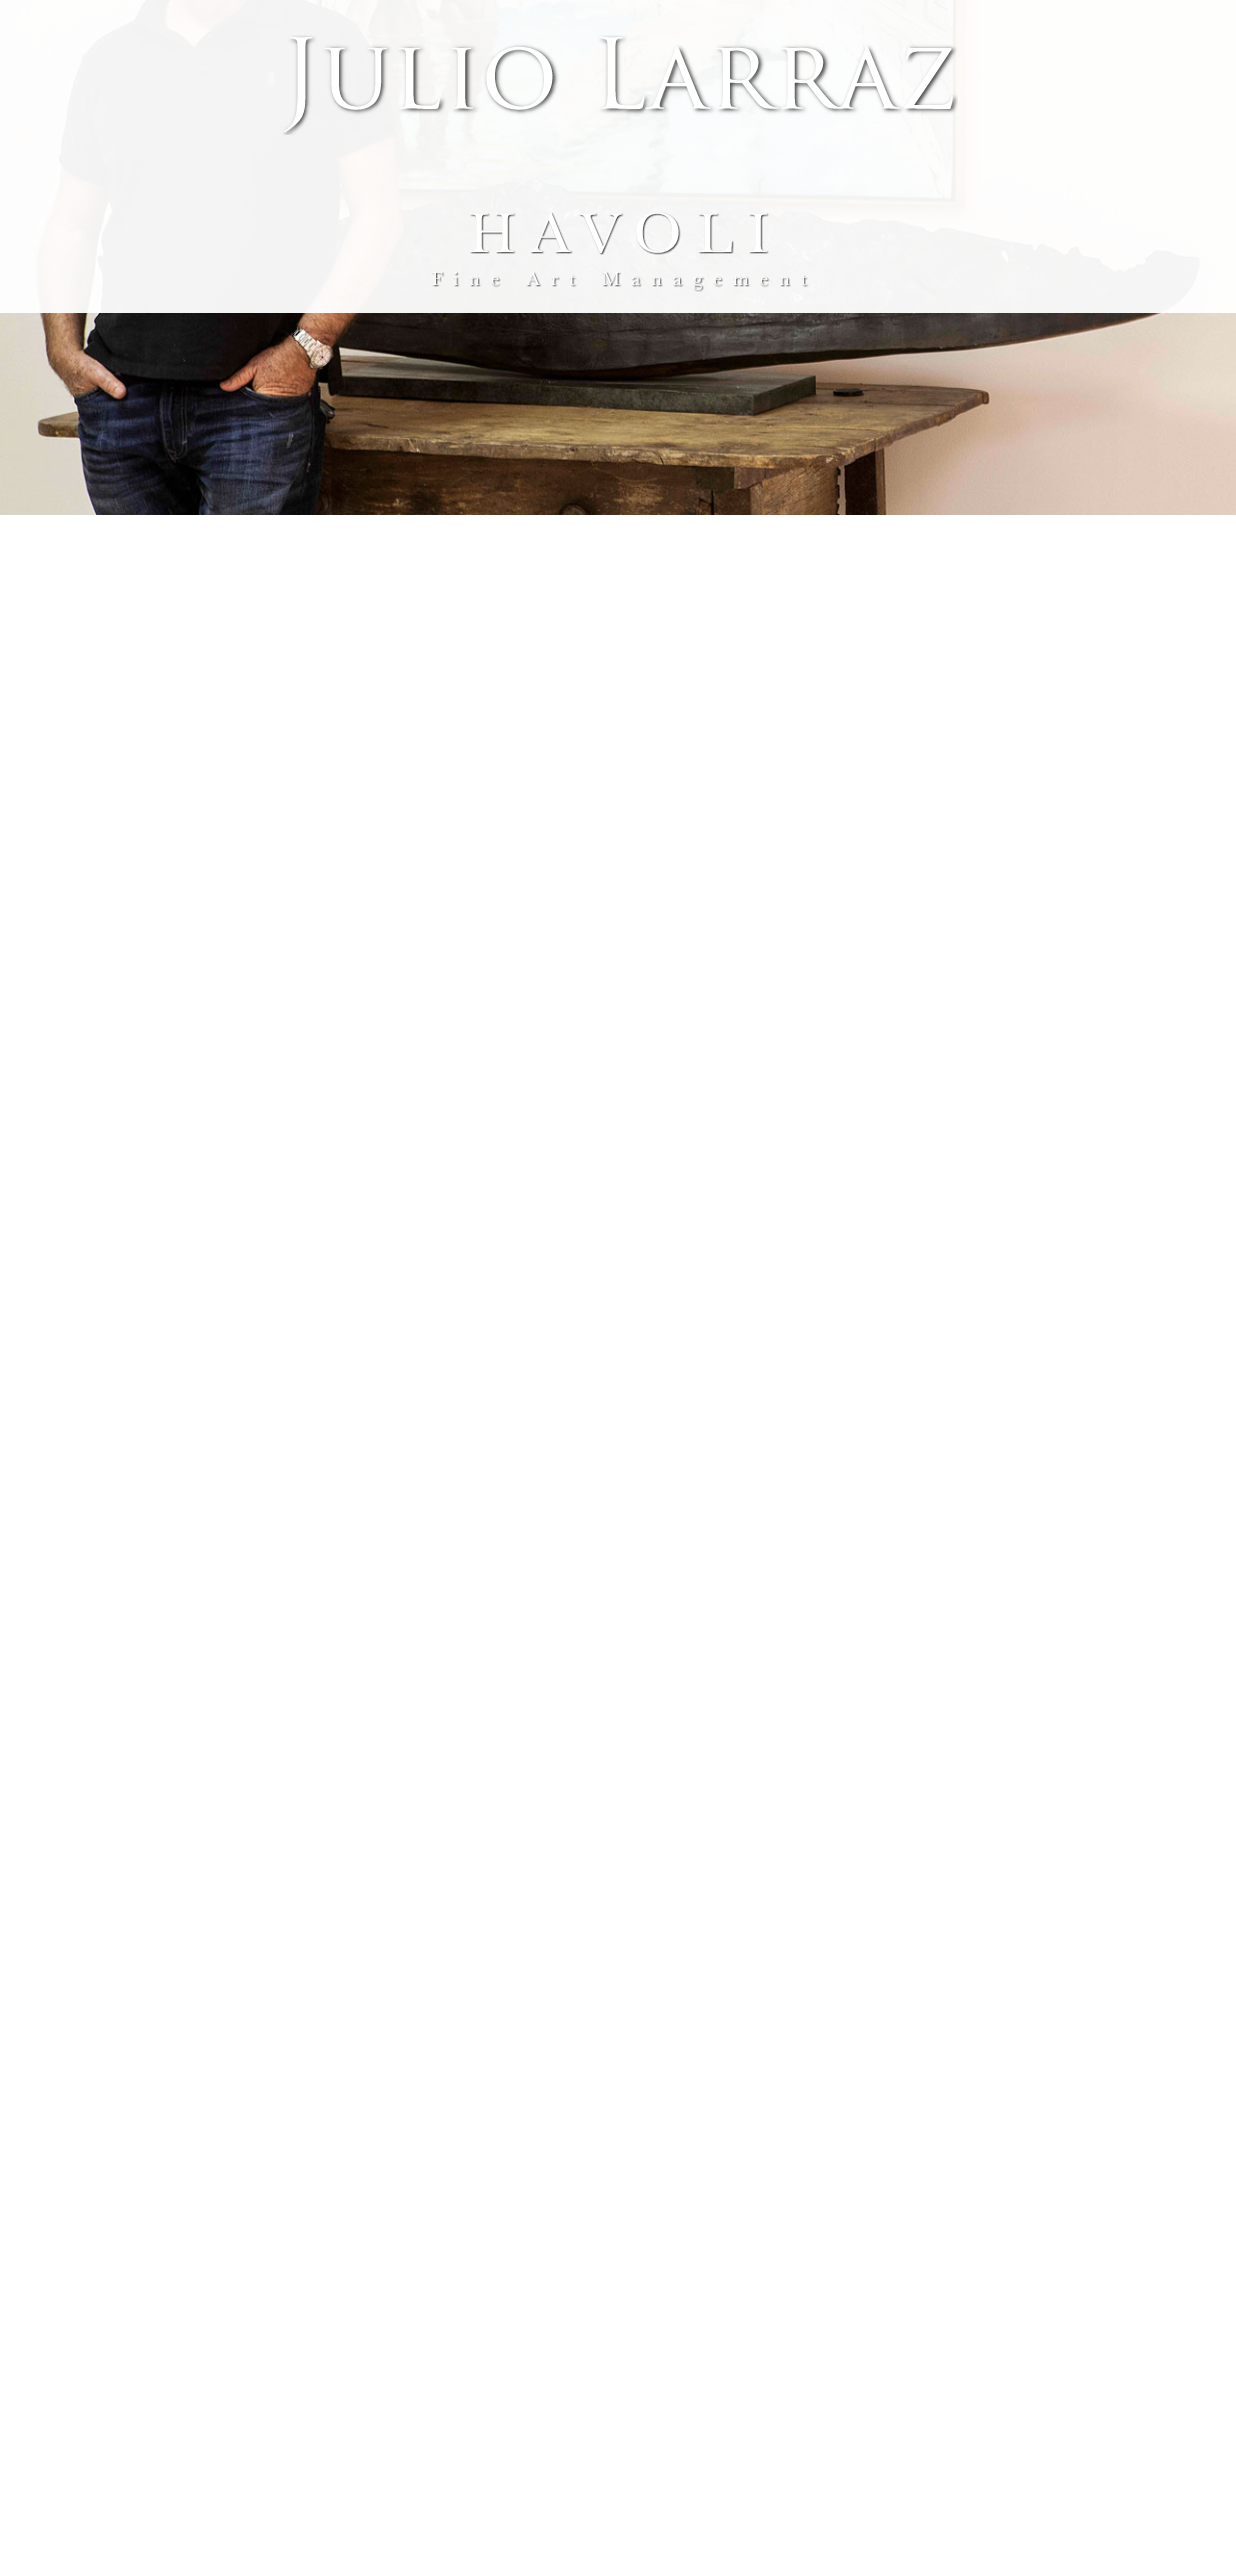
#include "include/core/SkBlurTypes.h"
#include "include/core/SkCanvas.h"
#include "include/core/SkData.h"
#include "include/core/SkFont.h"
#include "include/core/SkFontMgr.h"
#include "include/core/SkImage.h"
#include "include/core/SkMaskFilter.h"
#include "include/core/SkPaint.h"
#include "include/core/SkPathBuilder.h"
#include "include/core/SkTextBlob.h"
#include "include/effects/SkDashPathEffect.h"
#include "include/effects/SkGradientShader.h"
#include "include/utils/SkParsePath.h"

extern sk_sp<SkFontMgr> fontMgr;

void draw(SkCanvas* canvas) {
  SkPaint p;
  p.setAntiAlias(true);
  canvas->clear(SK_ColorWHITE);
  canvas->drawImageRect(SkImages::DeferredFromEncodedData(SkData::MakeFromFileName("images/1.png")), SkRect::MakeLTRB(0, 0, 1236, 515), SkSamplingOptions());
  p.setColor(SkColorSetARGB(242, 255, 255, 255));
  canvas->drawRect(SkRect::MakeLTRB(0, 0, 1236, 313), p);
  canvas->drawImageRect(SkImages::DeferredFromEncodedData(SkData::MakeFromFileName("images/2.png")), SkRect::MakeLTRB(283, 35, 958, 135), SkSamplingOptions());
  canvas->drawImageRect(SkImages::DeferredFromEncodedData(SkData::MakeFromFileName("images/3.png")), SkRect::MakeLTRB(432, 212, 809, 292), SkSamplingOptions());
}
